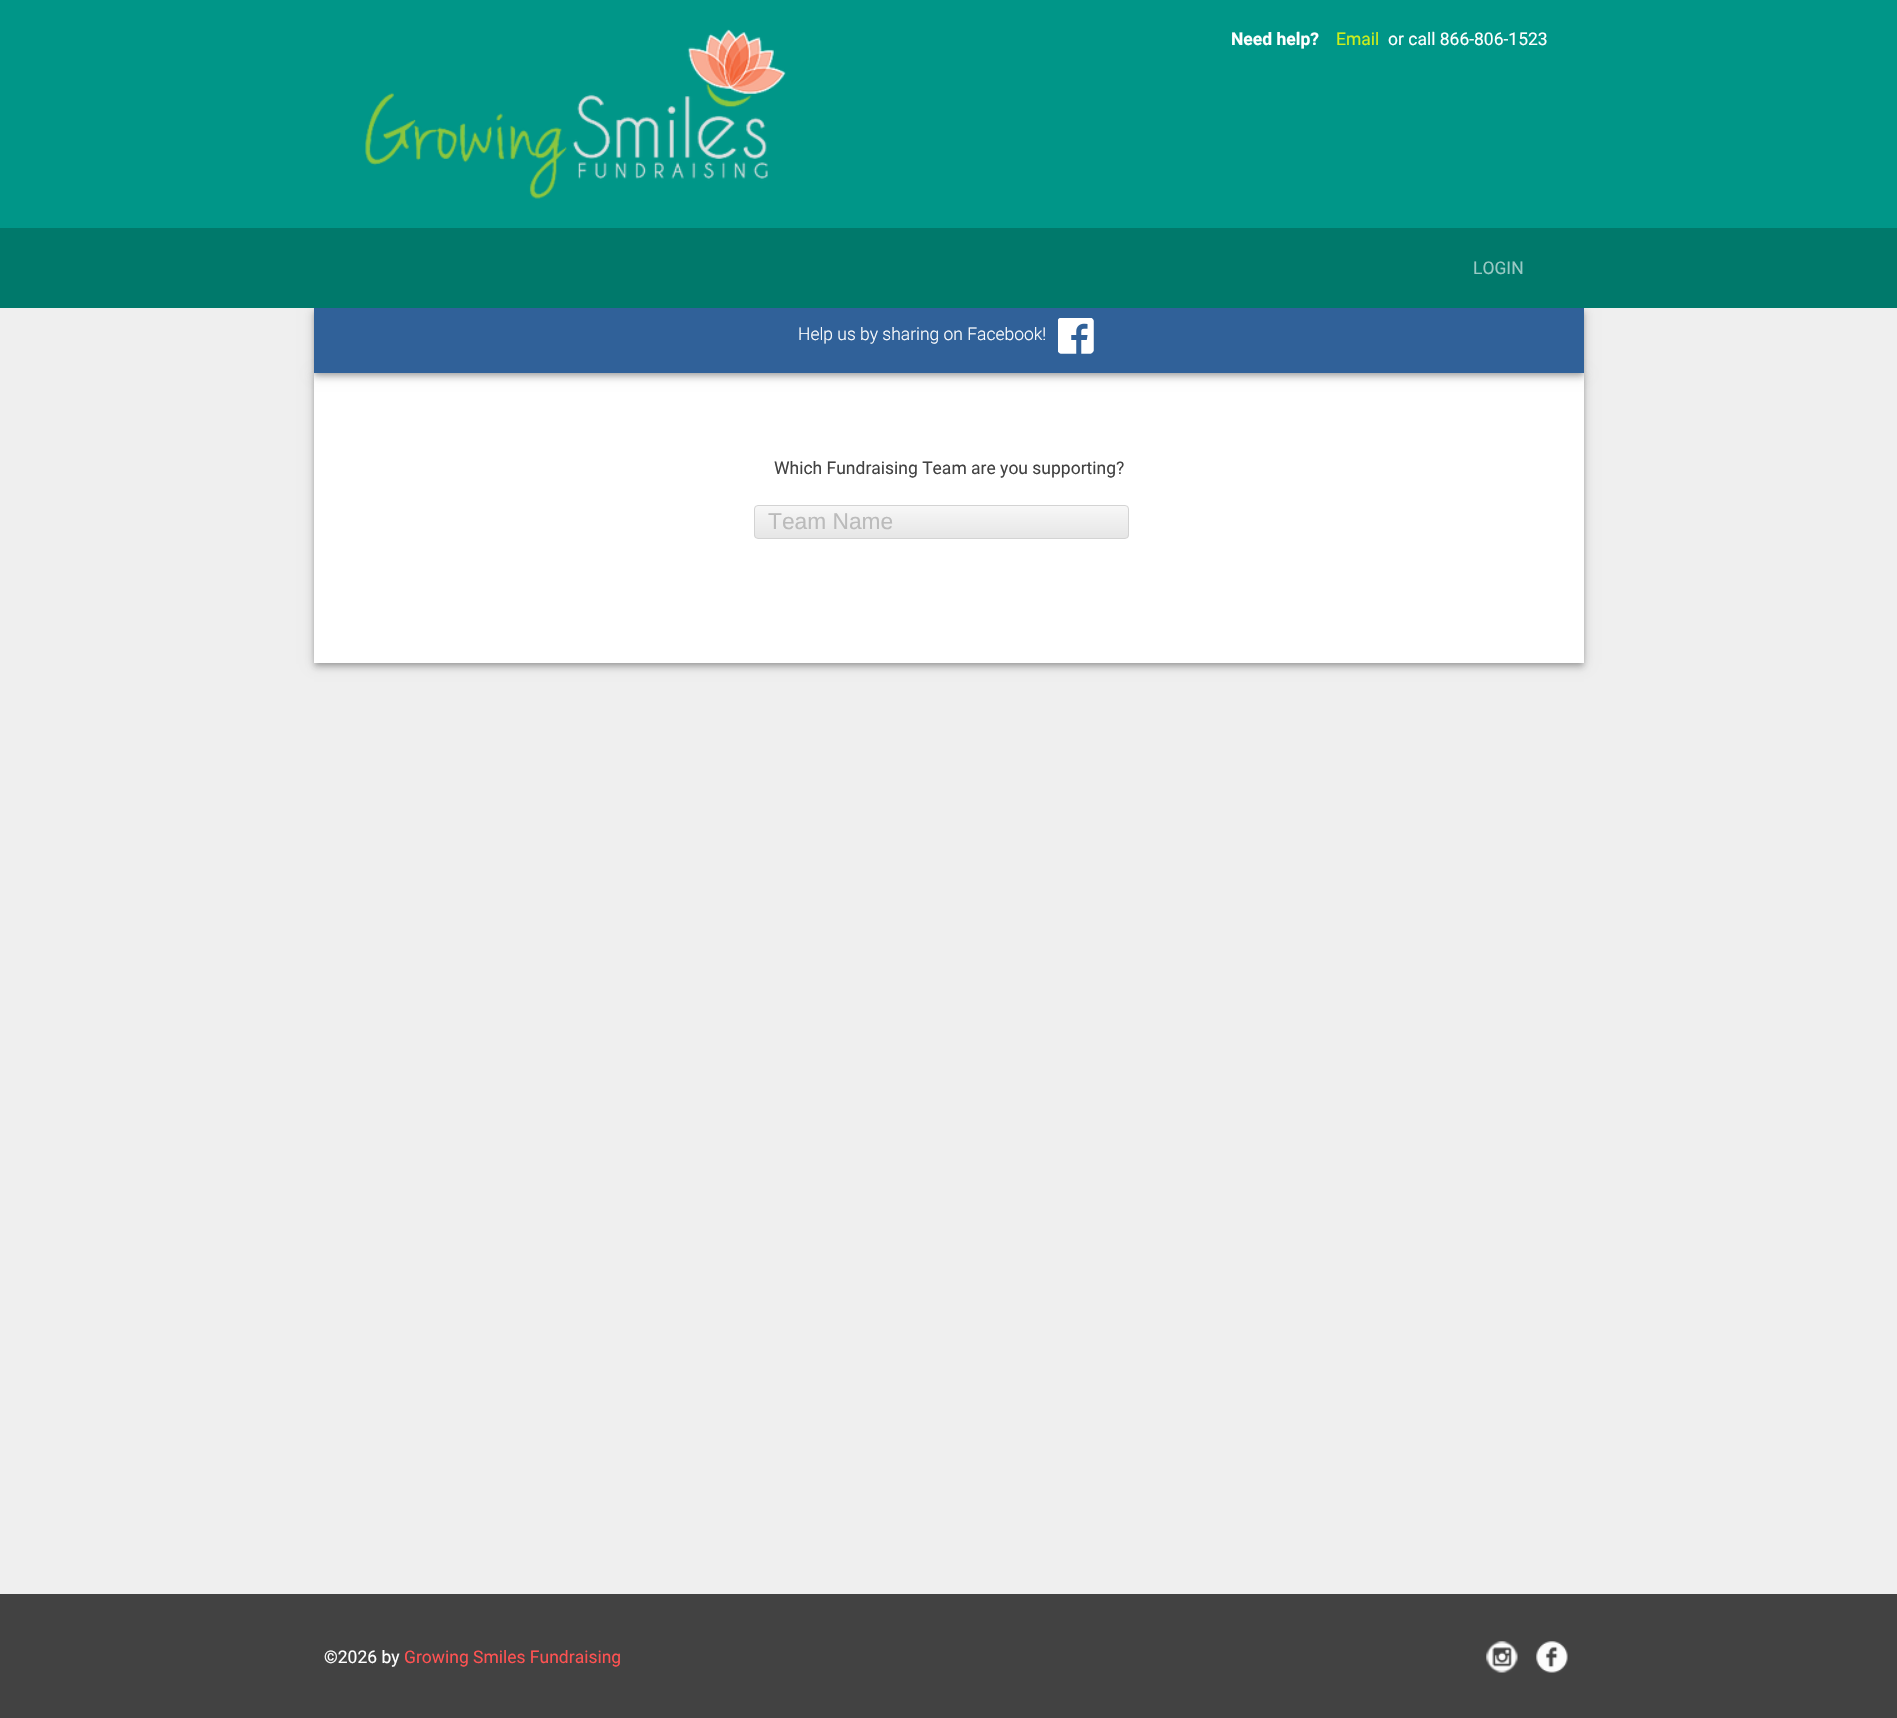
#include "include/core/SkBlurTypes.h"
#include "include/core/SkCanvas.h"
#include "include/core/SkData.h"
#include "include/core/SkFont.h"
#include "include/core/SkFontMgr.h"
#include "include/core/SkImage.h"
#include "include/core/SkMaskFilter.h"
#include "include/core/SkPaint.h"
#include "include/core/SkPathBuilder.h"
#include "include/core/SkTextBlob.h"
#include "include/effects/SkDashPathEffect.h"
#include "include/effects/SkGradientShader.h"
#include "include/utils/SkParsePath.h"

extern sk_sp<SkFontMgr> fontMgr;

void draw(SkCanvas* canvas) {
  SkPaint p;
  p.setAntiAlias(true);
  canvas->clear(SkColorSetRGB(239, 239, 239));
  p.setColor(SkColorSetRGB(0, 150, 136));
  canvas->drawRect(SkRect::MakeLTRB(0, 0, 1897, 228), p);
  canvas->drawImageRect(SkImages::DeferredFromEncodedData(SkData::MakeFromFileName("images/1.png")), SkRect::MakeLTRB(365, 29, 786, 199), SkSamplingOptions());
  p.setColor(SkColorSetARGB(51, 0, 0, 0));
  p.setMaskFilter(SkMaskFilter::MakeBlur(kNormal_SkBlurStyle, 2.5f));
  canvas->drawRect(SkRect::MakeLTRB(315, 376, 1583, 664), p);
  p.setMaskFilter(nullptr);
  p.setColor(SkColorSetARGB(31, 0, 0, 0));
  p.setMaskFilter(SkMaskFilter::MakeBlur(kNormal_SkBlurStyle, 6));
  canvas->drawRect(SkRect::MakeLTRB(314, 374, 1584, 664), p);
  p.setMaskFilter(nullptr);
  p.setColor(SkColorSetARGB(36, 0, 0, 0));
  p.setMaskFilter(SkMaskFilter::MakeBlur(kNormal_SkBlurStyle, 3));
  canvas->drawRect(SkRect::MakeLTRB(314, 378, 1584, 668), p);
  p.setMaskFilter(nullptr);
  p.setColor(SK_ColorWHITE);
  canvas->drawRect(SkRect::MakeLTRB(314, 373, 1584, 663), p);
  p.setColor(SkColorSetARGB(51, 0, 0, 0));
  p.setMaskFilter(SkMaskFilter::MakeBlur(kNormal_SkBlurStyle, 2.5f));
  canvas->drawRect(SkRect::MakeLTRB(315, 311, 1583, 374), p);
  p.setMaskFilter(nullptr);
  p.setColor(SkColorSetARGB(31, 0, 0, 0));
  p.setMaskFilter(SkMaskFilter::MakeBlur(kNormal_SkBlurStyle, 6));
  canvas->drawRect(SkRect::MakeLTRB(314, 309, 1584, 374), p);
  p.setMaskFilter(nullptr);
  p.setColor(SkColorSetARGB(36, 0, 0, 0));
  p.setMaskFilter(SkMaskFilter::MakeBlur(kNormal_SkBlurStyle, 3));
  canvas->drawRect(SkRect::MakeLTRB(314, 313, 1584, 378), p);
  p.setMaskFilter(nullptr);
  p.setColor(SkColorSetRGB(0, 121, 107));
  canvas->drawRect(SkRect::MakeLTRB(0, 228, 1897, 308), p);
  p.setColor(SkColorSetRGB(48, 97, 153));
  canvas->drawRect(SkRect::MakeLTRB(314, 308, 1584, 373), p);
  canvas->drawImageRect(SkImages::DeferredFromEncodedData(SkData::MakeFromFileName("images/2.png")), SkRect::MakeLTRB(1058, 318, 1094, 354), SkSamplingOptions());
  canvas->save();
  canvas->clipPath(SkPathBuilder().moveTo(758, 505).lineTo(1125, 505).cubicTo(1127, 505, 1129, 507, 1129, 509).lineTo(1129, 535).cubicTo(1129, 537, 1127, 539, 1125, 539).lineTo(758, 539).cubicTo(756, 539, 754, 537, 754, 535).lineTo(754, 509).cubicTo(754, 507, 756, 505, 758, 505).close().detach(), true);
  {
    const SkColor colors[] = {SkColorSetRGB(247, 247, 247), SkColorSetRGB(230, 230, 230)};
    const float stops[] = {0, 1};
    const SkPoint ends[] = {{941, 506}, {941, 538}};
    p.setShader(SkGradientShader::MakeLinear(ends, colors, stops, 2, SkTileMode::kClamp));
    p.setAlpha(255);
  }
  canvas->drawRect(SkRect::MakeLTRB(754, 506, 1129, 538), p);
  canvas->restore();
  p.setStyle(SkPaint::kStroke_Style);
  p.setStrokeWidth(1);
  p.setShader(nullptr);
  p.setColor(SkColorSetRGB(211, 211, 211));
  canvas->drawRoundRect(SkRect::MakeLTRB(754.5f, 505.5f, 1128.5f, 538.5f), 3.5f, 3.5f, p);
  p.setStyle(SkPaint::kFill_Style);
  p.setColor(SkColorSetRGB(66, 66, 66));
  canvas->drawRect(SkRect::MakeLTRB(0, 1594, 1897, 1718), p);
  canvas->drawImageRect(SkImages::DeferredFromEncodedData(SkData::MakeFromFileName("images/3.png")), SkRect::MakeLTRB(1486, 1641, 1518, 1673), SkSamplingOptions());
  canvas->drawImageRect(SkImages::DeferredFromEncodedData(SkData::MakeFromFileName("images/4.png")), SkRect::MakeLTRB(1536, 1641, 1568, 1673), SkSamplingOptions());
  SkFont font1(fontMgr->matchFamilyStyle("Roboto", SkFontStyle::Bold()), 17.5f);
  font1.setSubpixel(true);
  p.setColor(SK_ColorWHITE);
  canvas->drawString("Need help?", 1231, 45, font1, p);
  SkFont font2(fontMgr->matchFamilyStyle("Roboto", SkFontStyle::Normal()), 17.5f);
  font2.setSubpixel(true);
  p.setColor(SkColorSetRGB(205, 237, 27));
  canvas->drawString("Email", 1336, 45, font2, p);
  p.setColor(SK_ColorWHITE);
  canvas->drawString("or call 866-806-1523", 1388, 45, font2, p);
  p.setColor(SkColorSetRGB(153, 201, 196));
  canvas->drawString("LOGIN", 1473, 274, font2, p);
  SkFont font3(fontMgr->matchFamilyStyle("Roboto", SkFontStyle(300, SkFontStyle::kNormal_Width, SkFontStyle::kUpright_Slant)), 17.5f);
  font3.setSubpixel(true);
  p.setColor(SK_ColorWHITE);
  canvas->drawString("Help us by sharing on Facebook!", 798, 340, font3, p);
  p.setColor(SkColorSetRGB(66, 66, 66));
  canvas->drawString("Which Fundraising Team are you supporting?", 774, 474, font2, p);
  SkFont font4(fontMgr->matchFamilyStyle("Liberation Sans", SkFontStyle::Normal()), 22.75f);
  font4.setSubpixel(true);
  p.setColor(SkColorSetRGB(187, 187, 187));
  canvas->drawString("Team Name", 768, 529, font4, p);
  p.setColor(SK_ColorWHITE);
  canvas->drawString("©2026 by", 324, 1663, font2, p);
  p.setColor(SkColorSetRGB(255, 82, 82));
  canvas->drawString("Growing Smiles Fundraising", 404, 1663, font2, p);
}
